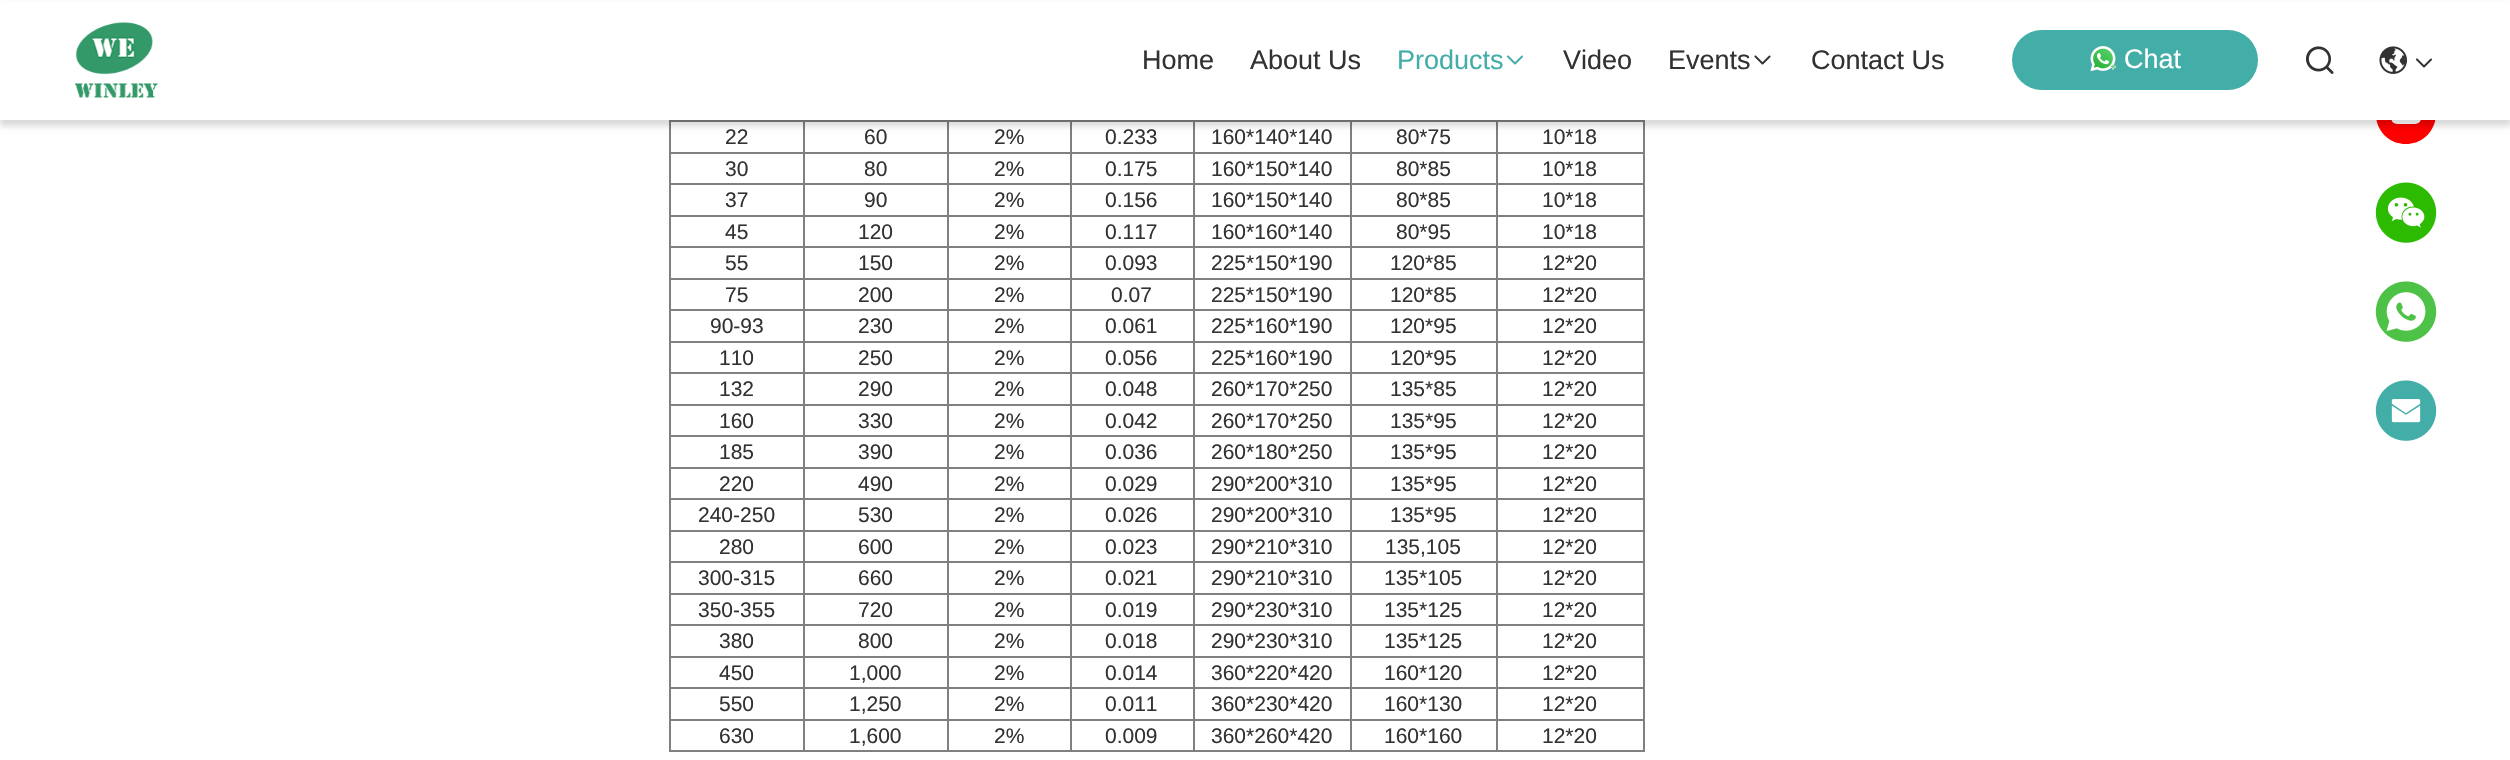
#include "include/core/SkBlurTypes.h"
#include "include/core/SkCanvas.h"
#include "include/core/SkData.h"
#include "include/core/SkFont.h"
#include "include/core/SkFontMgr.h"
#include "include/core/SkImage.h"
#include "include/core/SkMaskFilter.h"
#include "include/core/SkPaint.h"
#include "include/core/SkPathBuilder.h"
#include "include/core/SkTextBlob.h"
#include "include/effects/SkDashPathEffect.h"
#include "include/effects/SkGradientShader.h"
#include "include/utils/SkParsePath.h"

extern sk_sp<SkFontMgr> fontMgr;

void draw(SkCanvas* canvas) {
  SkPaint p;
  p.setAntiAlias(true);
  canvas->clear(SK_ColorWHITE);
  p.setColor(SkColorSetRGB(128, 128, 128));
  canvas->drawRect(SkRect::MakeLTRB(1643, 120, 1645, 752), p);
  canvas->drawRect(SkRect::MakeLTRB(669, 750, 1644, 752), p);
  canvas->drawRect(SkRect::MakeLTRB(669, 122, 671, 752), p);
  canvas->drawRect(SkRect::MakeLTRB(1496, 120, 1644, 122), p);
  canvas->drawRect(SkRect::MakeLTRB(1496, 152, 1644, 154), p);
  canvas->drawRect(SkRect::MakeLTRB(1496, 183, 1644, 185), p);
  canvas->drawRect(SkRect::MakeLTRB(1496, 215, 1644, 217), p);
  canvas->drawRect(SkRect::MakeLTRB(1496, 246, 1644, 248), p);
  canvas->drawRect(SkRect::MakeLTRB(1496, 278, 1644, 280), p);
  canvas->drawRect(SkRect::MakeLTRB(1496, 309, 1644, 311), p);
  canvas->drawRect(SkRect::MakeLTRB(1496, 341, 1644, 343), p);
  canvas->drawRect(SkRect::MakeLTRB(1496, 372, 1644, 374), p);
  canvas->drawRect(SkRect::MakeLTRB(1496, 404, 1644, 406), p);
  canvas->drawRect(SkRect::MakeLTRB(1496, 435, 1644, 437), p);
  canvas->drawRect(SkRect::MakeLTRB(1496, 467, 1644, 469), p);
  canvas->drawRect(SkRect::MakeLTRB(1496, 498, 1644, 500), p);
  canvas->drawRect(SkRect::MakeLTRB(1496, 530, 1644, 532), p);
  canvas->drawRect(SkRect::MakeLTRB(1496, 561, 1644, 563), p);
  canvas->drawRect(SkRect::MakeLTRB(1496, 593, 1644, 595), p);
  canvas->drawRect(SkRect::MakeLTRB(1496, 624, 1644, 626), p);
  canvas->drawRect(SkRect::MakeLTRB(1496, 656, 1644, 658), p);
  canvas->drawRect(SkRect::MakeLTRB(1496, 687, 1644, 689), p);
  canvas->drawRect(SkRect::MakeLTRB(1496, 719, 1644, 721), p);
  canvas->drawRect(SkRect::MakeLTRB(1496, 719, 1498, 752), p);
  canvas->drawRect(SkRect::MakeLTRB(1350, 719, 1497, 721), p);
  canvas->drawRect(SkRect::MakeLTRB(1496, 687, 1498, 720), p);
  canvas->drawRect(SkRect::MakeLTRB(1350, 687, 1497, 689), p);
  canvas->drawRect(SkRect::MakeLTRB(1496, 656, 1498, 689), p);
  canvas->drawRect(SkRect::MakeLTRB(1350, 656, 1497, 658), p);
  canvas->drawRect(SkRect::MakeLTRB(1496, 624, 1498, 657), p);
  canvas->drawRect(SkRect::MakeLTRB(1350, 624, 1497, 626), p);
  canvas->drawRect(SkRect::MakeLTRB(1496, 593, 1498, 626), p);
  canvas->drawRect(SkRect::MakeLTRB(1350, 593, 1497, 595), p);
  canvas->drawRect(SkRect::MakeLTRB(1496, 561, 1498, 594), p);
  canvas->drawRect(SkRect::MakeLTRB(1350, 561, 1497, 563), p);
  canvas->drawRect(SkRect::MakeLTRB(1496, 530, 1498, 563), p);
  canvas->drawRect(SkRect::MakeLTRB(1350, 530, 1497, 532), p);
  canvas->drawRect(SkRect::MakeLTRB(1496, 498, 1498, 531), p);
  canvas->drawRect(SkRect::MakeLTRB(1350, 498, 1497, 500), p);
  canvas->drawRect(SkRect::MakeLTRB(1496, 467, 1498, 500), p);
  canvas->drawRect(SkRect::MakeLTRB(1350, 467, 1497, 469), p);
  canvas->drawRect(SkRect::MakeLTRB(1496, 435, 1498, 468), p);
  canvas->drawRect(SkRect::MakeLTRB(1350, 435, 1497, 437), p);
  canvas->drawRect(SkRect::MakeLTRB(1496, 404, 1498, 437), p);
  canvas->drawRect(SkRect::MakeLTRB(1350, 404, 1497, 406), p);
  canvas->drawRect(SkRect::MakeLTRB(1496, 372, 1498, 405), p);
  canvas->drawRect(SkRect::MakeLTRB(1350, 372, 1497, 374), p);
  canvas->drawRect(SkRect::MakeLTRB(1496, 341, 1498, 374), p);
  canvas->drawRect(SkRect::MakeLTRB(1350, 341, 1497, 343), p);
  canvas->drawRect(SkRect::MakeLTRB(1496, 309, 1498, 342), p);
  canvas->drawRect(SkRect::MakeLTRB(1350, 309, 1497, 311), p);
  canvas->drawRect(SkRect::MakeLTRB(1496, 278, 1498, 311), p);
  canvas->drawRect(SkRect::MakeLTRB(1350, 278, 1497, 280), p);
  canvas->drawRect(SkRect::MakeLTRB(1496, 246, 1498, 279), p);
  canvas->drawRect(SkRect::MakeLTRB(1350, 246, 1497, 248), p);
  canvas->drawRect(SkRect::MakeLTRB(1496, 215, 1498, 248), p);
  canvas->drawRect(SkRect::MakeLTRB(1350, 215, 1497, 217), p);
  canvas->drawRect(SkRect::MakeLTRB(1496, 183, 1498, 216), p);
  canvas->drawRect(SkRect::MakeLTRB(1350, 183, 1497, 185), p);
  canvas->drawRect(SkRect::MakeLTRB(1496, 152, 1498, 185), p);
  canvas->drawRect(SkRect::MakeLTRB(1350, 152, 1497, 154), p);
  canvas->drawRect(SkRect::MakeLTRB(1496, 120, 1498, 153), p);
  canvas->drawRect(SkRect::MakeLTRB(1350, 120, 1497, 122), p);
  canvas->drawRect(SkRect::MakeLTRB(1350, 719, 1352, 752), p);
  canvas->drawRect(SkRect::MakeLTRB(1193, 719, 1352, 721), p);
  canvas->drawRect(SkRect::MakeLTRB(1350, 687, 1352, 720), p);
  canvas->drawRect(SkRect::MakeLTRB(1193, 687, 1352, 689), p);
  canvas->drawRect(SkRect::MakeLTRB(1350, 656, 1352, 689), p);
  canvas->drawRect(SkRect::MakeLTRB(1193, 656, 1352, 658), p);
  canvas->drawRect(SkRect::MakeLTRB(1350, 624, 1352, 657), p);
  canvas->drawRect(SkRect::MakeLTRB(1193, 624, 1352, 626), p);
  canvas->drawRect(SkRect::MakeLTRB(1350, 593, 1352, 626), p);
  canvas->drawRect(SkRect::MakeLTRB(1193, 593, 1352, 595), p);
  canvas->drawRect(SkRect::MakeLTRB(1350, 561, 1352, 594), p);
  canvas->drawRect(SkRect::MakeLTRB(1193, 561, 1352, 563), p);
  canvas->drawRect(SkRect::MakeLTRB(1350, 530, 1352, 563), p);
  canvas->drawRect(SkRect::MakeLTRB(1193, 530, 1352, 532), p);
  canvas->drawRect(SkRect::MakeLTRB(1350, 498, 1352, 531), p);
  canvas->drawRect(SkRect::MakeLTRB(1193, 498, 1352, 500), p);
  canvas->drawRect(SkRect::MakeLTRB(1350, 467, 1352, 500), p);
  canvas->drawRect(SkRect::MakeLTRB(1193, 467, 1352, 469), p);
  canvas->drawRect(SkRect::MakeLTRB(1350, 435, 1352, 468), p);
  canvas->drawRect(SkRect::MakeLTRB(1193, 435, 1352, 437), p);
  canvas->drawRect(SkRect::MakeLTRB(1350, 404, 1352, 437), p);
  canvas->drawRect(SkRect::MakeLTRB(1193, 404, 1352, 406), p);
  canvas->drawRect(SkRect::MakeLTRB(1350, 372, 1352, 405), p);
  canvas->drawRect(SkRect::MakeLTRB(1193, 372, 1352, 374), p);
  canvas->drawRect(SkRect::MakeLTRB(1350, 341, 1352, 374), p);
  canvas->drawRect(SkRect::MakeLTRB(1193, 341, 1352, 343), p);
  canvas->drawRect(SkRect::MakeLTRB(1350, 309, 1352, 342), p);
  canvas->drawRect(SkRect::MakeLTRB(1193, 309, 1352, 311), p);
  canvas->drawRect(SkRect::MakeLTRB(1350, 278, 1352, 311), p);
  canvas->drawRect(SkRect::MakeLTRB(1193, 278, 1352, 280), p);
  canvas->drawRect(SkRect::MakeLTRB(1350, 246, 1352, 279), p);
  canvas->drawRect(SkRect::MakeLTRB(1193, 246, 1352, 248), p);
  canvas->drawRect(SkRect::MakeLTRB(1350, 215, 1352, 248), p);
  canvas->drawRect(SkRect::MakeLTRB(1193, 215, 1352, 217), p);
  canvas->drawRect(SkRect::MakeLTRB(1350, 183, 1352, 216), p);
  canvas->drawRect(SkRect::MakeLTRB(1193, 183, 1352, 185), p);
  canvas->drawRect(SkRect::MakeLTRB(1350, 152, 1352, 185), p);
  canvas->drawRect(SkRect::MakeLTRB(1193, 152, 1352, 154), p);
  canvas->drawRect(SkRect::MakeLTRB(1350, 120, 1352, 153), p);
  canvas->drawRect(SkRect::MakeLTRB(1193, 120, 1352, 122), p);
  canvas->drawRect(SkRect::MakeLTRB(1193, 719, 1195, 752), p);
  canvas->drawRect(SkRect::MakeLTRB(1070, 719, 1194, 721), p);
  canvas->drawRect(SkRect::MakeLTRB(1193, 687, 1195, 720), p);
  canvas->drawRect(SkRect::MakeLTRB(1070, 687, 1194, 689), p);
  canvas->drawRect(SkRect::MakeLTRB(1193, 656, 1195, 689), p);
  canvas->drawRect(SkRect::MakeLTRB(1070, 656, 1194, 658), p);
  canvas->drawRect(SkRect::MakeLTRB(1193, 624, 1195, 657), p);
  canvas->drawRect(SkRect::MakeLTRB(1070, 624, 1194, 626), p);
  canvas->drawRect(SkRect::MakeLTRB(1193, 593, 1195, 626), p);
  canvas->drawRect(SkRect::MakeLTRB(1070, 593, 1194, 595), p);
  canvas->drawRect(SkRect::MakeLTRB(1193, 561, 1195, 594), p);
  canvas->drawRect(SkRect::MakeLTRB(1070, 561, 1194, 563), p);
  canvas->drawRect(SkRect::MakeLTRB(1193, 530, 1195, 563), p);
  canvas->drawRect(SkRect::MakeLTRB(1070, 530, 1194, 532), p);
  canvas->drawRect(SkRect::MakeLTRB(1193, 498, 1195, 531), p);
  canvas->drawRect(SkRect::MakeLTRB(1070, 498, 1194, 500), p);
  canvas->drawRect(SkRect::MakeLTRB(1193, 467, 1195, 500), p);
  canvas->drawRect(SkRect::MakeLTRB(1070, 467, 1194, 469), p);
  canvas->drawRect(SkRect::MakeLTRB(1193, 435, 1195, 468), p);
  canvas->drawRect(SkRect::MakeLTRB(1070, 435, 1194, 437), p);
  canvas->drawRect(SkRect::MakeLTRB(1193, 404, 1195, 437), p);
  canvas->drawRect(SkRect::MakeLTRB(1070, 404, 1194, 406), p);
  canvas->drawRect(SkRect::MakeLTRB(1193, 372, 1195, 405), p);
  canvas->drawRect(SkRect::MakeLTRB(1070, 372, 1194, 374), p);
  canvas->drawRect(SkRect::MakeLTRB(1193, 341, 1195, 374), p);
  canvas->drawRect(SkRect::MakeLTRB(1070, 341, 1194, 343), p);
  canvas->drawRect(SkRect::MakeLTRB(1193, 309, 1195, 342), p);
  canvas->drawRect(SkRect::MakeLTRB(1070, 309, 1194, 311), p);
  canvas->drawRect(SkRect::MakeLTRB(1193, 278, 1195, 311), p);
  canvas->drawRect(SkRect::MakeLTRB(1070, 278, 1194, 280), p);
  canvas->drawRect(SkRect::MakeLTRB(1193, 246, 1195, 279), p);
  canvas->drawRect(SkRect::MakeLTRB(1070, 246, 1194, 248), p);
  canvas->drawRect(SkRect::MakeLTRB(1193, 215, 1195, 248), p);
  canvas->drawRect(SkRect::MakeLTRB(1070, 215, 1194, 217), p);
  canvas->drawRect(SkRect::MakeLTRB(1193, 183, 1195, 216), p);
  canvas->drawRect(SkRect::MakeLTRB(1070, 183, 1194, 185), p);
  canvas->drawRect(SkRect::MakeLTRB(1193, 152, 1195, 185), p);
  canvas->drawRect(SkRect::MakeLTRB(1070, 152, 1194, 154), p);
  canvas->drawRect(SkRect::MakeLTRB(1193, 120, 1195, 153), p);
  canvas->drawRect(SkRect::MakeLTRB(1070, 120, 1194, 122), p);
  canvas->drawRect(SkRect::MakeLTRB(1070, 719, 1072, 752), p);
  canvas->drawRect(SkRect::MakeLTRB(947, 719, 1071, 721), p);
  canvas->drawRect(SkRect::MakeLTRB(1070, 687, 1072, 720), p);
  canvas->drawRect(SkRect::MakeLTRB(947, 687, 1071, 689), p);
  canvas->drawRect(SkRect::MakeLTRB(1070, 656, 1072, 689), p);
  canvas->drawRect(SkRect::MakeLTRB(947, 656, 1071, 658), p);
  canvas->drawRect(SkRect::MakeLTRB(1070, 624, 1072, 657), p);
  canvas->drawRect(SkRect::MakeLTRB(947, 624, 1071, 626), p);
  canvas->drawRect(SkRect::MakeLTRB(1070, 593, 1072, 626), p);
  canvas->drawRect(SkRect::MakeLTRB(947, 593, 1071, 595), p);
  canvas->drawRect(SkRect::MakeLTRB(1070, 561, 1072, 594), p);
  canvas->drawRect(SkRect::MakeLTRB(947, 561, 1071, 563), p);
  canvas->drawRect(SkRect::MakeLTRB(1070, 530, 1072, 563), p);
  canvas->drawRect(SkRect::MakeLTRB(947, 530, 1071, 532), p);
  canvas->drawRect(SkRect::MakeLTRB(1070, 498, 1072, 531), p);
  canvas->drawRect(SkRect::MakeLTRB(947, 498, 1071, 500), p);
  canvas->drawRect(SkRect::MakeLTRB(1070, 467, 1072, 500), p);
  canvas->drawRect(SkRect::MakeLTRB(947, 467, 1071, 469), p);
  canvas->drawRect(SkRect::MakeLTRB(1070, 435, 1072, 468), p);
  canvas->drawRect(SkRect::MakeLTRB(947, 435, 1071, 437), p);
  canvas->drawRect(SkRect::MakeLTRB(1070, 404, 1072, 437), p);
  canvas->drawRect(SkRect::MakeLTRB(947, 404, 1071, 406), p);
  canvas->drawRect(SkRect::MakeLTRB(1070, 372, 1072, 405), p);
  canvas->drawRect(SkRect::MakeLTRB(947, 372, 1071, 374), p);
  canvas->drawRect(SkRect::MakeLTRB(1070, 341, 1072, 374), p);
  canvas->drawRect(SkRect::MakeLTRB(947, 341, 1071, 343), p);
  canvas->drawRect(SkRect::MakeLTRB(1070, 309, 1072, 342), p);
  canvas->drawRect(SkRect::MakeLTRB(947, 309, 1071, 311), p);
  canvas->drawRect(SkRect::MakeLTRB(1070, 278, 1072, 311), p);
  canvas->drawRect(SkRect::MakeLTRB(947, 278, 1071, 280), p);
  canvas->drawRect(SkRect::MakeLTRB(1070, 246, 1072, 279), p);
  canvas->drawRect(SkRect::MakeLTRB(947, 246, 1071, 248), p);
  canvas->drawRect(SkRect::MakeLTRB(1070, 215, 1072, 248), p);
  canvas->drawRect(SkRect::MakeLTRB(947, 215, 1071, 217), p);
  canvas->drawRect(SkRect::MakeLTRB(1070, 183, 1072, 216), p);
  canvas->drawRect(SkRect::MakeLTRB(947, 183, 1071, 185), p);
  canvas->drawRect(SkRect::MakeLTRB(1070, 152, 1072, 185), p);
  canvas->drawRect(SkRect::MakeLTRB(947, 152, 1071, 154), p);
  canvas->drawRect(SkRect::MakeLTRB(1070, 120, 1072, 153), p);
  canvas->drawRect(SkRect::MakeLTRB(947, 120, 1071, 122), p);
  canvas->drawRect(SkRect::MakeLTRB(947, 719, 949, 752), p);
  canvas->drawRect(SkRect::MakeLTRB(803, 719, 948, 721), p);
  canvas->drawRect(SkRect::MakeLTRB(947, 687, 949, 720), p);
  canvas->drawRect(SkRect::MakeLTRB(803, 687, 948, 689), p);
  canvas->drawRect(SkRect::MakeLTRB(947, 656, 949, 689), p);
  canvas->drawRect(SkRect::MakeLTRB(803, 656, 948, 658), p);
  canvas->drawRect(SkRect::MakeLTRB(947, 624, 949, 657), p);
  canvas->drawRect(SkRect::MakeLTRB(803, 624, 948, 626), p);
  canvas->drawRect(SkRect::MakeLTRB(947, 593, 949, 626), p);
  canvas->drawRect(SkRect::MakeLTRB(803, 593, 948, 595), p);
  canvas->drawRect(SkRect::MakeLTRB(947, 561, 949, 594), p);
  canvas->drawRect(SkRect::MakeLTRB(803, 561, 948, 563), p);
  canvas->drawRect(SkRect::MakeLTRB(947, 530, 949, 563), p);
  canvas->drawRect(SkRect::MakeLTRB(803, 530, 948, 532), p);
  canvas->drawRect(SkRect::MakeLTRB(947, 498, 949, 531), p);
  canvas->drawRect(SkRect::MakeLTRB(803, 498, 948, 500), p);
  canvas->drawRect(SkRect::MakeLTRB(947, 467, 949, 500), p);
  canvas->drawRect(SkRect::MakeLTRB(803, 467, 948, 469), p);
  canvas->drawRect(SkRect::MakeLTRB(947, 435, 949, 468), p);
  canvas->drawRect(SkRect::MakeLTRB(803, 435, 948, 437), p);
  canvas->drawRect(SkRect::MakeLTRB(947, 404, 949, 437), p);
  canvas->drawRect(SkRect::MakeLTRB(803, 404, 948, 406), p);
  canvas->drawRect(SkRect::MakeLTRB(947, 372, 949, 405), p);
  canvas->drawRect(SkRect::MakeLTRB(803, 372, 948, 374), p);
  canvas->drawRect(SkRect::MakeLTRB(947, 341, 949, 374), p);
  canvas->drawRect(SkRect::MakeLTRB(803, 341, 948, 343), p);
  canvas->drawRect(SkRect::MakeLTRB(947, 309, 949, 342), p);
  canvas->drawRect(SkRect::MakeLTRB(803, 309, 948, 311), p);
  canvas->drawRect(SkRect::MakeLTRB(947, 278, 949, 311), p);
  canvas->drawRect(SkRect::MakeLTRB(803, 278, 948, 280), p);
  canvas->drawRect(SkRect::MakeLTRB(947, 246, 949, 279), p);
  canvas->drawRect(SkRect::MakeLTRB(803, 246, 948, 248), p);
  canvas->drawRect(SkRect::MakeLTRB(947, 215, 949, 248), p);
  canvas->drawRect(SkRect::MakeLTRB(803, 215, 948, 217), p);
  canvas->drawRect(SkRect::MakeLTRB(947, 183, 949, 216), p);
  canvas->drawRect(SkRect::MakeLTRB(803, 183, 948, 185), p);
  canvas->drawRect(SkRect::MakeLTRB(947, 152, 949, 185), p);
  canvas->drawRect(SkRect::MakeLTRB(803, 152, 948, 154), p);
  canvas->drawRect(SkRect::MakeLTRB(947, 120, 949, 153), p);
  canvas->drawRect(SkRect::MakeLTRB(803, 120, 948, 122), p);
  canvas->drawRect(SkRect::MakeLTRB(803, 719, 805, 752), p);
  canvas->drawRect(SkRect::MakeLTRB(669, 719, 804, 721), p);
  canvas->drawRect(SkRect::MakeLTRB(803, 687, 805, 720), p);
  canvas->drawRect(SkRect::MakeLTRB(669, 687, 804, 689), p);
  canvas->drawRect(SkRect::MakeLTRB(803, 656, 805, 689), p);
  canvas->drawRect(SkRect::MakeLTRB(669, 656, 804, 658), p);
  canvas->drawRect(SkRect::MakeLTRB(803, 624, 805, 657), p);
  canvas->drawRect(SkRect::MakeLTRB(669, 624, 804, 626), p);
  canvas->drawRect(SkRect::MakeLTRB(803, 593, 805, 626), p);
  canvas->drawRect(SkRect::MakeLTRB(669, 593, 804, 595), p);
  canvas->drawRect(SkRect::MakeLTRB(803, 561, 805, 594), p);
  canvas->drawRect(SkRect::MakeLTRB(669, 561, 804, 563), p);
  canvas->drawRect(SkRect::MakeLTRB(803, 530, 805, 563), p);
  canvas->drawRect(SkRect::MakeLTRB(669, 530, 804, 532), p);
  canvas->drawRect(SkRect::MakeLTRB(803, 498, 805, 531), p);
  canvas->drawRect(SkRect::MakeLTRB(669, 498, 804, 500), p);
  canvas->drawRect(SkRect::MakeLTRB(803, 467, 805, 500), p);
  canvas->drawRect(SkRect::MakeLTRB(669, 467, 804, 469), p);
  canvas->drawRect(SkRect::MakeLTRB(803, 435, 805, 468), p);
  canvas->drawRect(SkRect::MakeLTRB(669, 435, 804, 437), p);
  canvas->drawRect(SkRect::MakeLTRB(803, 404, 805, 437), p);
  canvas->drawRect(SkRect::MakeLTRB(669, 404, 804, 406), p);
  canvas->drawRect(SkRect::MakeLTRB(803, 372, 805, 405), p);
  canvas->drawRect(SkRect::MakeLTRB(669, 372, 804, 374), p);
  canvas->drawRect(SkRect::MakeLTRB(803, 341, 805, 374), p);
  canvas->drawRect(SkRect::MakeLTRB(669, 341, 804, 343), p);
  canvas->drawRect(SkRect::MakeLTRB(803, 309, 805, 342), p);
  canvas->drawRect(SkRect::MakeLTRB(669, 309, 804, 311), p);
  canvas->drawRect(SkRect::MakeLTRB(803, 278, 805, 311), p);
  canvas->drawRect(SkRect::MakeLTRB(669, 278, 804, 280), p);
  canvas->drawRect(SkRect::MakeLTRB(803, 246, 805, 279), p);
  canvas->drawRect(SkRect::MakeLTRB(669, 246, 804, 248), p);
  canvas->drawRect(SkRect::MakeLTRB(803, 215, 805, 248), p);
  canvas->drawRect(SkRect::MakeLTRB(669, 215, 804, 217), p);
  canvas->drawRect(SkRect::MakeLTRB(803, 183, 805, 216), p);
  canvas->drawRect(SkRect::MakeLTRB(669, 183, 804, 185), p);
  canvas->drawRect(SkRect::MakeLTRB(803, 152, 805, 185), p);
  canvas->drawRect(SkRect::MakeLTRB(669, 152, 804, 154), p);
  canvas->drawRect(SkRect::MakeLTRB(803, 120, 805, 153), p);
  canvas->drawRect(SkRect::MakeLTRB(669, 120, 804, 122), p);
  p.setColor(SkColorSetRGB(255, 0, 0));
  canvas->drawPath(SkPathBuilder().moveTo(2406, 83).cubicTo(2413, 83, 2419, 86, 2424, 90).cubicTo(2447, 107, 2435, 144, 2406, 144).cubicTo(2377, 144, 2365, 107, 2388, 90).cubicTo(2393, 86, 2399, 83, 2406, 83).close().moveTo(2407, 103).cubicTo(2394, 103, 2391, 101, 2391, 114).cubicTo(2391, 125, 2394, 124, 2405, 124).lineTo(2415, 124).cubicTo(2422, 123, 2421, 119, 2421, 114).cubicTo(2421, 102, 2418, 103, 2407, 103).close().moveTo(2403, 109).lineTo(2411, 114).lineTo(2403, 118).close().detach(), p);
  p.setColor(SkColorSetARGB(38, 0, 0, 0));
  p.setMaskFilter(SkMaskFilter::MakeBlur(kNormal_SkBlurStyle, 3));
  canvas->drawRect(SkRect::MakeLTRB(0, 6, 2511, 126), p);
  p.setMaskFilter(nullptr);
  p.setColor(SK_ColorWHITE);
  canvas->drawRect(SkRect::MakeLTRB(0, 2, 2510, 120), p);
  canvas->drawImageRect(SkImages::DeferredFromEncodedData(SkData::MakeFromFileName("images/1.png")), SkRect::MakeLTRB(75, 22, 158, 98), SkSamplingOptions());
  canvas->drawImageRect(SkImages::DeferredFromEncodedData(SkData::MakeFromFileName("images/2.png")), SkRect::MakeLTRB(1506, 55, 1523, 65), SkSamplingOptions());
  canvas->drawImageRect(SkImages::DeferredFromEncodedData(SkData::MakeFromFileName("images/3.png")), SkRect::MakeLTRB(1754, 55, 1771, 65), SkSamplingOptions());
  p.setColor(SkColorSetRGB(67, 173, 167));
  canvas->drawRoundRect(SkRect::MakeLTRB(2012, 30, 2258, 90), 30, 30, p);
  canvas->drawImageRect(SkImages::DeferredFromEncodedData(SkData::MakeFromFileName("images/4.png")), SkRect::MakeLTRB(2090, 46, 2116, 72), SkSamplingOptions());
  canvas->drawImageRect(SkImages::DeferredFromEncodedData(SkData::MakeFromFileName("images/5.png")), SkRect::MakeLTRB(2305, 46, 2334, 74), SkSamplingOptions());
  canvas->drawImageRect(SkImages::DeferredFromEncodedData(SkData::MakeFromFileName("images/6.png")), SkRect::MakeLTRB(2379, 46, 2407, 74), SkSamplingOptions());
  canvas->drawImageRect(SkImages::DeferredFromEncodedData(SkData::MakeFromFileName("images/7.png")), SkRect::MakeLTRB(2415, 58, 2432, 68), SkSamplingOptions());
  canvas->drawImageRect(SkImages::DeferredFromEncodedData(SkData::MakeFromFileName("images/8.png")), SkRect::MakeLTRB(2375, 182, 2437, 243), SkSamplingOptions());
  canvas->drawImageRect(SkImages::DeferredFromEncodedData(SkData::MakeFromFileName("images/9.png")), SkRect::MakeLTRB(2375, 281, 2437, 342), SkSamplingOptions());
  canvas->drawImageRect(SkImages::DeferredFromEncodedData(SkData::MakeFromFileName("images/10.png")), SkRect::MakeLTRB(2375, 380, 2437, 441), SkSamplingOptions());
  SkFont font1(fontMgr->matchFamilyStyle("Liberation Sans", SkFontStyle::Normal()), 27);
  font1.setSubpixel(true);
  p.setColor(SkColorSetRGB(50, 50, 50));
  canvas->drawString("Home", 1142, 69, font1, p);
  canvas->drawString("About Us", 1250, 69, font1, p);
  p.setColor(SkColorSetRGB(67, 173, 167));
  canvas->drawString("Products", 1397, 69, font1, p);
  p.setColor(SkColorSetRGB(50, 50, 50));
  canvas->drawString("Video", 1563, 69, font1, p);
  canvas->drawString("Events", 1668, 69, font1, p);
  canvas->drawString("Contact Us", 1811, 69, font1, p);
  p.setColor(SK_ColorWHITE);
  canvas->drawString("Chat", 2124, 68, font1, p);
  SkFont font2(fontMgr->matchFamilyStyle("Liberation Sans", SkFontStyle::Normal()), 21);
  font2.setSubpixel(true);
  p.setColor(SkColorSetRGB(50, 50, 50));
  canvas->drawString("22", 725, 144, font2, p);
  canvas->drawString("60", 864, 144, font2, p);
  canvas->drawString("2%", 994, 144, font2, p);
  canvas->drawString("0.233", 1105, 144, font2, p);
  canvas->drawString("160*140*140", 1211, 144, font2, p);
  canvas->drawString("80*75", 1396, 144, font2, p);
  canvas->drawString("10*18", 1542, 144, font2, p);
  canvas->drawString("30", 725, 176, font2, p);
  canvas->drawString("80", 864, 176, font2, p);
  canvas->drawString("2%", 994, 176, font2, p);
  canvas->drawString("0.175", 1105, 176, font2, p);
  canvas->drawString("160*150*140", 1211, 176, font2, p);
  canvas->drawString("80*85", 1396, 176, font2, p);
  canvas->drawString("10*18", 1542, 176, font2, p);
  canvas->drawString("37", 725, 207, font2, p);
  canvas->drawString("90", 864, 207, font2, p);
  canvas->drawString("2%", 994, 207, font2, p);
  canvas->drawString("0.156", 1105, 207, font2, p);
  canvas->drawString("160*150*140", 1211, 207, font2, p);
  canvas->drawString("80*85", 1396, 207, font2, p);
  canvas->drawString("10*18", 1542, 207, font2, p);
  canvas->drawString("45", 725, 239, font2, p);
  canvas->drawString("120", 858, 239, font2, p);
  canvas->drawString("2%", 994, 239, font2, p);
  canvas->drawString("0.117", 1105, 239, font2, p);
  canvas->drawString("160*160*140", 1211, 239, font2, p);
  canvas->drawString("80*95", 1396, 239, font2, p);
  canvas->drawString("10*18", 1542, 239, font2, p);
  canvas->drawString("55", 725, 270, font2, p);
  canvas->drawString("150", 858, 270, font2, p);
  canvas->drawString("2%", 994, 270, font2, p);
  canvas->drawString("0.093", 1105, 270, font2, p);
  canvas->drawString("225*150*190", 1211, 270, font2, p);
  canvas->drawString("120*85", 1390, 270, font2, p);
  canvas->drawString("12*20", 1542, 270, font2, p);
  canvas->drawString("75", 725, 302, font2, p);
  canvas->drawString("200", 858, 302, font2, p);
  canvas->drawString("2%", 994, 302, font2, p);
  canvas->drawString("0.07", 1111, 302, font2, p);
  canvas->drawString("225*150*190", 1211, 302, font2, p);
  canvas->drawString("120*85", 1390, 302, font2, p);
  canvas->drawString("12*20", 1542, 302, font2, p);
  canvas->drawString("90-93", 710, 333, font2, p);
  canvas->drawString("230", 858, 333, font2, p);
  canvas->drawString("2%", 994, 333, font2, p);
  canvas->drawString("0.061", 1105, 333, font2, p);
  canvas->drawString("225*160*190", 1211, 333, font2, p);
  canvas->drawString("120*95", 1390, 333, font2, p);
  canvas->drawString("12*20", 1542, 333, font2, p);
  canvas->drawString("110", 719, 365, font2, p);
  canvas->drawString("250", 858, 365, font2, p);
  canvas->drawString("2%", 994, 365, font2, p);
  canvas->drawString("0.056", 1105, 365, font2, p);
  canvas->drawString("225*160*190", 1211, 365, font2, p);
  canvas->drawString("120*95", 1390, 365, font2, p);
  canvas->drawString("12*20", 1542, 365, font2, p);
  canvas->drawString("132", 719, 396, font2, p);
  canvas->drawString("290", 858, 396, font2, p);
  canvas->drawString("2%", 994, 396, font2, p);
  canvas->drawString("0.048", 1105, 396, font2, p);
  canvas->drawString("260*170*250", 1211, 396, font2, p);
  canvas->drawString("135*85", 1390, 396, font2, p);
  canvas->drawString("12*20", 1542, 396, font2, p);
  canvas->drawString("160", 719, 428, font2, p);
  canvas->drawString("330", 858, 428, font2, p);
  canvas->drawString("2%", 994, 428, font2, p);
  canvas->drawString("0.042", 1105, 428, font2, p);
  canvas->drawString("260*170*250", 1211, 428, font2, p);
  canvas->drawString("135*95", 1390, 428, font2, p);
  canvas->drawString("12*20", 1542, 428, font2, p);
  canvas->drawString("185", 719, 459, font2, p);
  canvas->drawString("390", 858, 459, font2, p);
  canvas->drawString("2%", 994, 459, font2, p);
  canvas->drawString("0.036", 1105, 459, font2, p);
  canvas->drawString("260*180*250", 1211, 459, font2, p);
  canvas->drawString("135*95", 1390, 459, font2, p);
  canvas->drawString("12*20", 1542, 459, font2, p);
  canvas->drawString("220", 719, 491, font2, p);
  canvas->drawString("490", 858, 491, font2, p);
  canvas->drawString("2%", 994, 491, font2, p);
  canvas->drawString("0.029", 1105, 491, font2, p);
  canvas->drawString("290*200*310", 1211, 491, font2, p);
  canvas->drawString("135*95", 1390, 491, font2, p);
  canvas->drawString("12*20", 1542, 491, font2, p);
  canvas->drawString("240-250", 698, 522, font2, p);
  canvas->drawString("530", 858, 522, font2, p);
  canvas->drawString("2%", 994, 522, font2, p);
  canvas->drawString("0.026", 1105, 522, font2, p);
  canvas->drawString("290*200*310", 1211, 522, font2, p);
  canvas->drawString("135*95", 1390, 522, font2, p);
  canvas->drawString("12*20", 1542, 522, font2, p);
  canvas->drawString("280", 719, 554, font2, p);
  canvas->drawString("600", 858, 554, font2, p);
  canvas->drawString("2%", 994, 554, font2, p);
  canvas->drawString("0.023", 1105, 554, font2, p);
  canvas->drawString("290*210*310", 1211, 554, font2, p);
  canvas->drawString("135,105", 1385, 554, font2, p);
  canvas->drawString("12*20", 1542, 554, font2, p);
  canvas->drawString("300-315", 698, 585, font2, p);
  canvas->drawString("660", 858, 585, font2, p);
  canvas->drawString("2%", 994, 585, font2, p);
  canvas->drawString("0.021", 1105, 585, font2, p);
  canvas->drawString("290*210*310", 1211, 585, font2, p);
  canvas->drawString("135*105", 1384, 585, font2, p);
  canvas->drawString("12*20", 1542, 585, font2, p);
  canvas->drawString("350-355", 698, 617, font2, p);
  canvas->drawString("720", 858, 617, font2, p);
  canvas->drawString("2%", 994, 617, font2, p);
  canvas->drawString("0.019", 1105, 617, font2, p);
  canvas->drawString("290*230*310", 1211, 617, font2, p);
  canvas->drawString("135*125", 1384, 617, font2, p);
  canvas->drawString("12*20", 1542, 617, font2, p);
  canvas->drawString("380", 719, 648, font2, p);
  canvas->drawString("800", 858, 648, font2, p);
  canvas->drawString("2%", 994, 648, font2, p);
  canvas->drawString("0.018", 1105, 648, font2, p);
  canvas->drawString("290*230*310", 1211, 648, font2, p);
  canvas->drawString("135*125", 1384, 648, font2, p);
  canvas->drawString("12*20", 1542, 648, font2, p);
  canvas->drawString("450", 719, 680, font2, p);
  canvas->drawString("1,000", 849, 680, font2, p);
  canvas->drawString("2%", 994, 680, font2, p);
  canvas->drawString("0.014", 1105, 680, font2, p);
  canvas->drawString("360*220*420", 1211, 680, font2, p);
  canvas->drawString("160*120", 1384, 680, font2, p);
  canvas->drawString("12*20", 1542, 680, font2, p);
  canvas->drawString("550", 719, 711, font2, p);
  canvas->drawString("1,250", 849, 711, font2, p);
  canvas->drawString("2%", 994, 711, font2, p);
  canvas->drawString("0.011", 1105, 711, font2, p);
  canvas->drawString("360*230*420", 1211, 711, font2, p);
  canvas->drawString("160*130", 1384, 711, font2, p);
  canvas->drawString("12*20", 1542, 711, font2, p);
  canvas->drawString("630", 719, 743, font2, p);
  canvas->drawString("1,600", 849, 743, font2, p);
  canvas->drawString("2%", 994, 743, font2, p);
  canvas->drawString("0.009", 1105, 743, font2, p);
  canvas->drawString("360*260*420", 1211, 743, font2, p);
  canvas->drawString("160*160", 1384, 743, font2, p);
  canvas->drawString("12*20", 1542, 743, font2, p);
}
